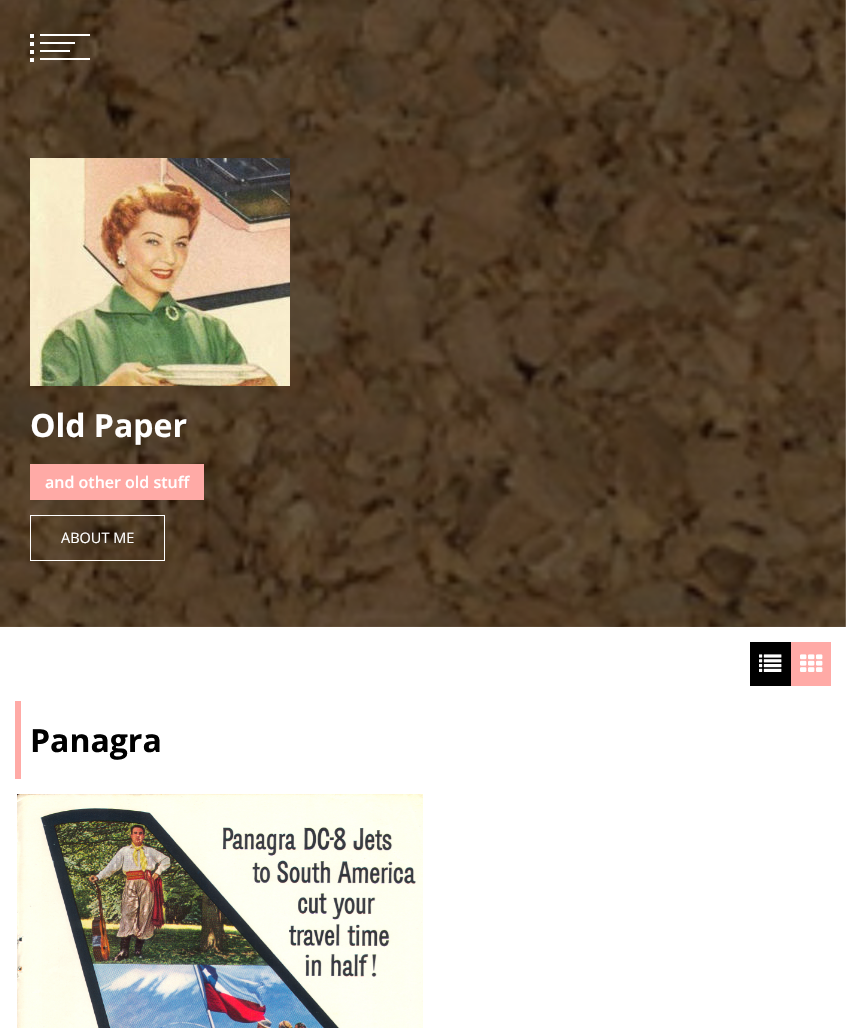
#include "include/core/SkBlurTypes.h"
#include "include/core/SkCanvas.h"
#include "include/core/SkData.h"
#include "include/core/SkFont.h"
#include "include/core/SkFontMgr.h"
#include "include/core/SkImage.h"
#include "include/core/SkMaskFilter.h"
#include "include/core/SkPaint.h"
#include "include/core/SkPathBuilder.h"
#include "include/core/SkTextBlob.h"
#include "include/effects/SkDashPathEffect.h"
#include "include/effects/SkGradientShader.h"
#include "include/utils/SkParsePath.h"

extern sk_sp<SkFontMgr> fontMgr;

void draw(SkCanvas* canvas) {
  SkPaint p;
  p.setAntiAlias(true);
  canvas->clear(SK_ColorWHITE);
  canvas->drawImageRect(SkImages::DeferredFromEncodedData(SkData::MakeFromFileName("images/1.png")), SkRect::MakeLTRB(0, 0, 846, 627), SkSamplingOptions());
  p.setColor(SK_ColorWHITE);
  canvas->drawRect(SkRect::MakeLTRB(30, 34, 34, 38), p);
  canvas->drawRect(SkRect::MakeLTRB(40, 34, 90, 36), p);
  canvas->drawRect(SkRect::MakeLTRB(30, 42, 34, 46), p);
  canvas->drawRect(SkRect::MakeLTRB(40, 42, 75, 44), p);
  canvas->drawRect(SkRect::MakeLTRB(30, 50, 34, 54), p);
  canvas->drawRect(SkRect::MakeLTRB(40, 50, 70, 52), p);
  canvas->drawRect(SkRect::MakeLTRB(30, 58, 34, 62), p);
  canvas->drawRect(SkRect::MakeLTRB(40, 58, 90, 60), p);
  canvas->drawImageRect(SkImages::DeferredFromEncodedData(SkData::MakeFromFileName("images/2.png")), SkRect::MakeLTRB(30, 158, 290, 386), SkSamplingOptions());
  p.setColor(SkColorSetRGB(255, 170, 166));
  canvas->drawRect(SkRect::MakeLTRB(30, 464, 204, 500), p);
  p.setStyle(SkPaint::kStroke_Style);
  p.setStrokeWidth(1);
  p.setColor(SK_ColorWHITE);
  canvas->drawRect(SkRect::MakeLTRB(30.5f, 515.5f, 164.5f, 560.5f), p);
  p.setStyle(SkPaint::kFill_Style);
  p.setColor(SK_ColorBLACK);
  canvas->drawRect(SkRect::MakeLTRB(750, 642, 791, 686), p);
  canvas->drawImageRect(SkImages::DeferredFromEncodedData(SkData::MakeFromFileName("images/3.png")), SkRect::MakeLTRB(759, 654, 782, 672), SkSamplingOptions());
  p.setColor(SkColorSetRGB(255, 170, 166));
  canvas->drawRect(SkRect::MakeLTRB(791, 642, 831, 686), p);
  canvas->drawImageRect(SkImages::DeferredFromEncodedData(SkData::MakeFromFileName("images/4.png")), SkRect::MakeLTRB(800, 654, 823, 672), SkSamplingOptions());
  canvas->drawRect(SkRect::MakeLTRB(15, 701, 21, 779), p);
  canvas->drawImageRect(SkImages::DeferredFromEncodedData(SkData::MakeFromFileName("images/5.png")), SkRect::MakeLTRB(17, 794, 423, 1028), SkSamplingOptions());
  SkFont font1(fontMgr->matchFamilyStyle("Open Sans", SkFontStyle::Bold()), 32);
  font1.setSubpixel(true);
  p.setColor(SK_ColorWHITE);
  canvas->drawString("Old Paper", 30, 437, font1, p);
  SkFont font2(fontMgr->matchFamilyStyle("Open Sans", SkFontStyle(600, SkFontStyle::kNormal_Width, SkFontStyle::kUpright_Slant)), 16);
  font2.setSubpixel(true);
  canvas->drawString("and other old stuff", 45, 488, font2, p);
  SkFont font3(fontMgr->matchFamilyStyle("Open Sans", SkFontStyle::Normal()), 14.5f);
  font3.setSubpixel(true);
  canvas->drawString("ABOUT ME", 61, 543, font3, p);
  p.setColor(SK_ColorBLACK);
  canvas->drawString("Panagra", 30, 752, font1, p);
}
